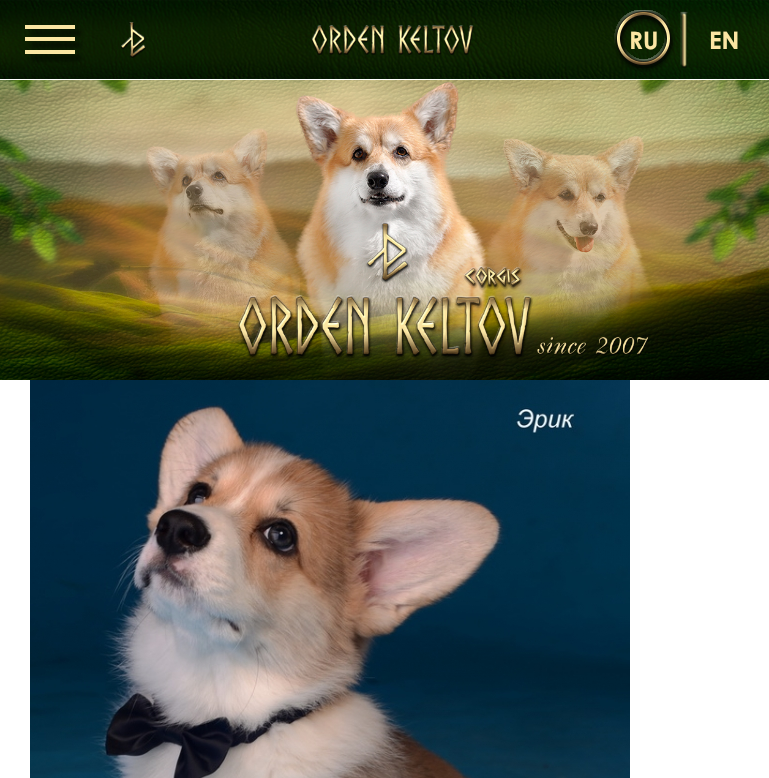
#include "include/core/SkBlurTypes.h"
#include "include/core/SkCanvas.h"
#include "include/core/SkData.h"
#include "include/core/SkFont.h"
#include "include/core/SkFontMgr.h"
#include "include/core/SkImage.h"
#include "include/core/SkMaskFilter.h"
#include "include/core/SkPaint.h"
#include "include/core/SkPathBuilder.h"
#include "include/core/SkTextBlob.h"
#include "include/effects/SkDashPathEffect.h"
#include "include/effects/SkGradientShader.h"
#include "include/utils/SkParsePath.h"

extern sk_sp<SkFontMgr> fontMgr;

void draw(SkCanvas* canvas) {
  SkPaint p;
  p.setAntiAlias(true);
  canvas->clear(SK_ColorWHITE);
  canvas->drawImageRect(SkImages::DeferredFromEncodedData(SkData::MakeFromFileName("images/1.png")), SkRect::MakeLTRB(0, 0, 769, 79), SkSamplingOptions());
  p.setColor(SkColorSetARGB(179, 0, 0, 0));
  p.setMaskFilter(SkMaskFilter::MakeBlur(kNormal_SkBlurStyle, 2.5f));
  canvas->drawRect(SkRect::MakeLTRB(31, 31, 81, 35), p);
  p.setMaskFilter(nullptr);
  p.setColor(SkColorSetRGB(251, 230, 163));
  canvas->drawRect(SkRect::MakeLTRB(25, 25, 75, 29), p);
  p.setColor(SkColorSetARGB(179, 0, 0, 0));
  p.setMaskFilter(SkMaskFilter::MakeBlur(kNormal_SkBlurStyle, 2.5f));
  canvas->drawRect(SkRect::MakeLTRB(31, 43, 81, 47), p);
  p.setMaskFilter(nullptr);
  p.setColor(SkColorSetRGB(251, 230, 163));
  canvas->drawRect(SkRect::MakeLTRB(25, 37, 75, 41), p);
  p.setColor(SkColorSetARGB(179, 0, 0, 0));
  p.setMaskFilter(SkMaskFilter::MakeBlur(kNormal_SkBlurStyle, 2.5f));
  canvas->drawRect(SkRect::MakeLTRB(31, 56, 81, 60), p);
  p.setMaskFilter(nullptr);
  p.setColor(SkColorSetRGB(251, 230, 163));
  canvas->drawRect(SkRect::MakeLTRB(25, 50, 75, 54), p);
  canvas->drawImageRect(SkImages::DeferredFromEncodedData(SkData::MakeFromFileName("images/2.png")), SkRect::MakeLTRB(121, 22, 146, 58), SkSamplingOptions());
  canvas->drawImageRect(SkImages::DeferredFromEncodedData(SkData::MakeFromFileName("images/3.png")), SkRect::MakeLTRB(311, 25, 474, 55), SkSamplingOptions());
  canvas->drawImageRect(SkImages::DeferredFromEncodedData(SkData::MakeFromFileName("images/4.png")), SkRect::MakeLTRB(614, 10, 675, 72), SkSamplingOptions());
  canvas->drawImageRect(SkImages::DeferredFromEncodedData(SkData::MakeFromFileName("images/5.png")), SkRect::MakeLTRB(680, 11, 688, 68), SkSamplingOptions());
  canvas->drawImageRect(SkImages::DeferredFromEncodedData(SkData::MakeFromFileName("images/6.png")), SkRect::MakeLTRB(0, 80, 769, 380), SkSamplingOptions());
  canvas->drawImageRect(SkImages::DeferredFromEncodedData(SkData::MakeFromFileName("images/7.png")), SkRect::MakeLTRB(30, 380, 630, 778), SkSamplingOptions());
  SkFont font1(fontMgr->matchFamilyStyle("Century Gothic", SkFontStyle::Bold()), 24);
  font1.setSubpixel(true);
  canvas->drawString("RU", 629, 49, font1, p);
  canvas->drawString("EN", 709, 49, font1, p);
}
